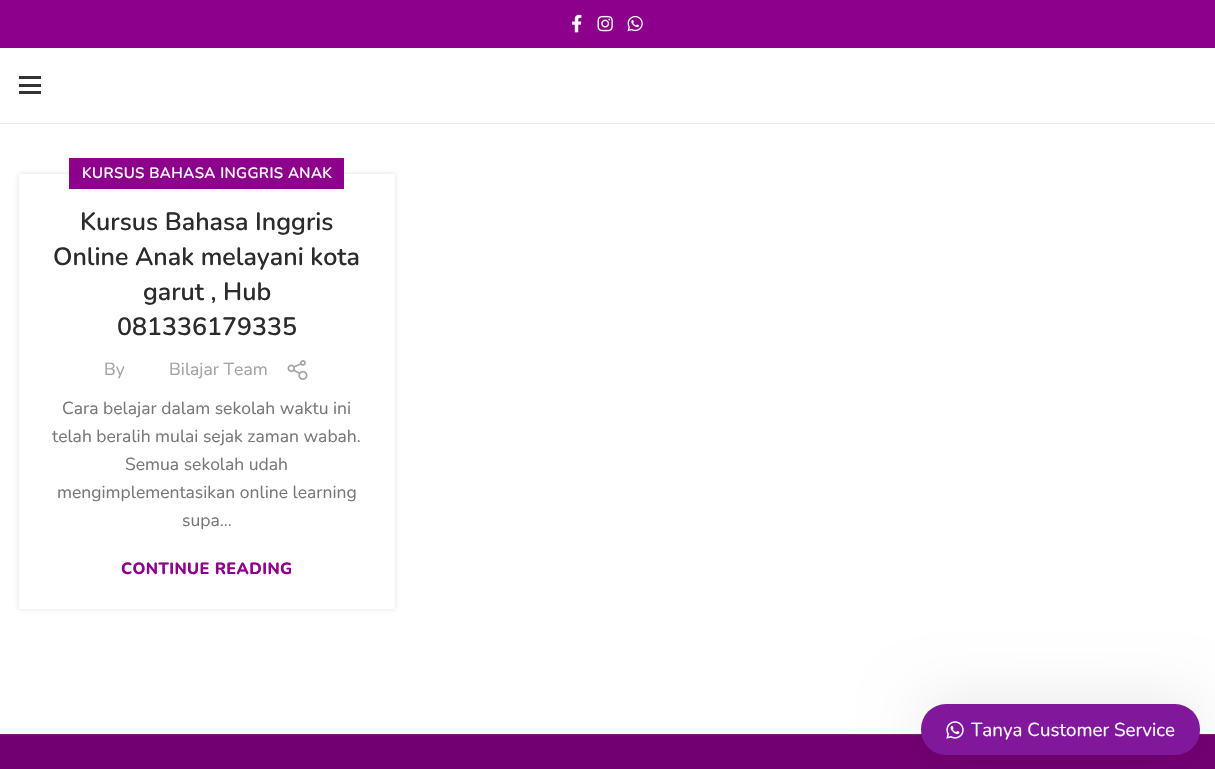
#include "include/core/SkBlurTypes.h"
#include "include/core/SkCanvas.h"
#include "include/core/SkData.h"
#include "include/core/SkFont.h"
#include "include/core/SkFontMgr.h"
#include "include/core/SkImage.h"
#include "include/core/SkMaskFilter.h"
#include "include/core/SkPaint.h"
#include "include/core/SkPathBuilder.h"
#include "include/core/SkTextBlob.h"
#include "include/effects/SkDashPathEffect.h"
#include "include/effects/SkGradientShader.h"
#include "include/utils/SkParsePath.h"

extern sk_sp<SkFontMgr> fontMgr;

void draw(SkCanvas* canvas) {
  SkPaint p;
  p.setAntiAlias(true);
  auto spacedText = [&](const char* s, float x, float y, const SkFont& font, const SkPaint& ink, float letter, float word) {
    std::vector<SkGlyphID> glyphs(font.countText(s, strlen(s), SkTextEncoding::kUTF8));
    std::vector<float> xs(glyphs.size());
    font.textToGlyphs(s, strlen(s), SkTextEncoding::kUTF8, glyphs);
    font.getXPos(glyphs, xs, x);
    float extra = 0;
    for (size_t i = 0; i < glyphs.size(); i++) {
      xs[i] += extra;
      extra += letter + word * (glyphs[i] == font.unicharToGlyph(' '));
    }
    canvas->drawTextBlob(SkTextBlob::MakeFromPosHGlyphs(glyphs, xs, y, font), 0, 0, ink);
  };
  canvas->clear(SK_ColorWHITE);
  p.setColor(SkColorSetRGB(140, 0, 140));
  canvas->drawRect(SkRect::MakeLTRB(0, 0, 1215, 48), p);
  canvas->drawImageRect(SkImages::DeferredFromEncodedData(SkData::MakeFromFileName("images/1.png")), SkRect::MakeLTRB(572, 14, 582, 33), SkSamplingOptions());
  canvas->drawImageRect(SkImages::DeferredFromEncodedData(SkData::MakeFromFileName("images/2.png")), SkRect::MakeLTRB(597, 15, 613, 32), SkSamplingOptions());
  canvas->drawImageRect(SkImages::DeferredFromEncodedData(SkData::MakeFromFileName("images/3.png")), SkRect::MakeLTRB(627, 15, 643, 32), SkSamplingOptions());
  p.setColor(SkColorSetRGB(232, 232, 232));
  canvas->drawRect(SkRect::MakeLTRB(0, 123, 1215, 124), p);
  p.setColor(SkColorSetRGB(51, 51, 51));
  canvas->drawRect(SkRect::MakeLTRB(19, 84, 41, 87), p);
  canvas->drawRect(SkRect::MakeLTRB(19, 76, 41, 79), p);
  canvas->drawRect(SkRect::MakeLTRB(19, 91, 41, 94), p);
  p.setColor(SkColorSetARGB(31, 0, 0, 0));
  p.setMaskFilter(SkMaskFilter::MakeBlur(kNormal_SkBlurStyle, 2.5f));
  canvas->drawRect(SkRect::MakeLTRB(19, 174, 395, 609), p);
  p.setMaskFilter(nullptr);
  p.setColor(SK_ColorWHITE);
  canvas->drawRect(SkRect::MakeLTRB(19, 174, 395, 609), p);
  p.setColor(SkColorSetRGB(140, 0, 140));
  canvas->drawRect(SkRect::MakeLTRB(69, 158, 344, 189), p);
  canvas->drawImageRect(SkImages::DeferredFromEncodedData(SkData::MakeFromFileName("images/4.png")), SkRect::MakeLTRB(287, 360, 308, 380), SkSamplingOptions());
  p.setColor(SkColorSetRGB(115, 0, 114));
  canvas->drawRect(SkRect::MakeLTRB(0, 735, 1215, 769), p);
  p.setColor(SkColorSetRGB(129, 26, 128));
  canvas->drawRect(SkRect::MakeLTRB(0, 734, 1215, 735), p);
  p.setColor(SkColorSetARGB(26, 0, 0, 0));
  p.setMaskFilter(SkMaskFilter::MakeBlur(kNormal_SkBlurStyle, 31));
  canvas->drawRoundRect(SkRect::MakeLTRB(921, 704, 1200, 755), 25, 25, p);
  p.setMaskFilter(nullptr);
  p.setColor(SkColorSetRGB(129, 23, 155));
  canvas->drawRoundRect(SkRect::MakeLTRB(921, 704, 1200, 755), 25, 25, p);
  canvas->drawImageRect(SkImages::DeferredFromEncodedData(SkData::MakeFromFileName("images/5.png")), SkRect::MakeLTRB(946, 721, 964, 739), SkSamplingOptions());
  SkFont font1(fontMgr->matchFamilyStyle("Nunito", SkFontStyle(600, SkFontStyle::kNormal_Width, SkFontStyle::kUpright_Slant)), 15);
  font1.setSubpixel(true);
  p.setColor(SK_ColorWHITE);
  spacedText("KURSUS BAHASA INGGRIS ANAK", 82, 178, font1, p, 0.4f, 0);
  SkFont font2(fontMgr->matchFamilyStyle("Nunito", SkFontStyle(600, SkFontStyle::kNormal_Width, SkFontStyle::kUpright_Slant)), 25);
  font2.setSubpixel(true);
  p.setColor(SkColorSetRGB(45, 42, 42));
  canvas->drawString("Kursus Bahasa Inggris", 80, 230, font2, p);
  canvas->drawString("Online Anak melayani kota", 53, 265, font2, p);
  canvas->drawString("garut , Hub", 143, 300, font2, p);
  canvas->drawString("081336179335", 117, 335, font2, p);
  SkFont font3(fontMgr->matchFamilyStyle("Nunito", SkFontStyle::Normal()), 17.5f);
  font3.setSubpixel(true);
  p.setColor(SkColorSetRGB(164, 164, 164));
  canvas->drawString("By", 104, 375, font3, p);
  canvas->drawString("Bilajar Team", 169, 375, font3, p);
  p.setColor(SkColorSetRGB(119, 119, 119));
  canvas->drawString("Cara belajar dalam sekolah waktu ini", 62, 414, font3, p);
  canvas->drawString("telah beralih mulai sejak zaman wabah.", 52, 442, font3, p);
  canvas->drawString("Semua sekolah udah", 125, 470, font3, p);
  canvas->drawString("mengimplementasikan online learning", 57, 498, font3, p);
  canvas->drawString("supa...", 182, 526, font3, p);
  SkFont font4(fontMgr->matchFamilyStyle("Nunito", SkFontStyle(800, SkFontStyle::kNormal_Width, SkFontStyle::kUpright_Slant)), 16.25f);
  font4.setSubpixel(true);
  p.setColor(SkColorSetRGB(140, 0, 140));
  spacedText("CONTINUE READING", 121, 574, font4, p, 0.4f, 0);
  SkFont font5(fontMgr->matchFamilyStyle("Nunito", SkFontStyle::Normal()), 18.75f);
  font5.setSubpixel(true);
  p.setColor(SK_ColorWHITE);
  canvas->drawString("Tanya Customer Service", 971, 736, font5, p);
}
